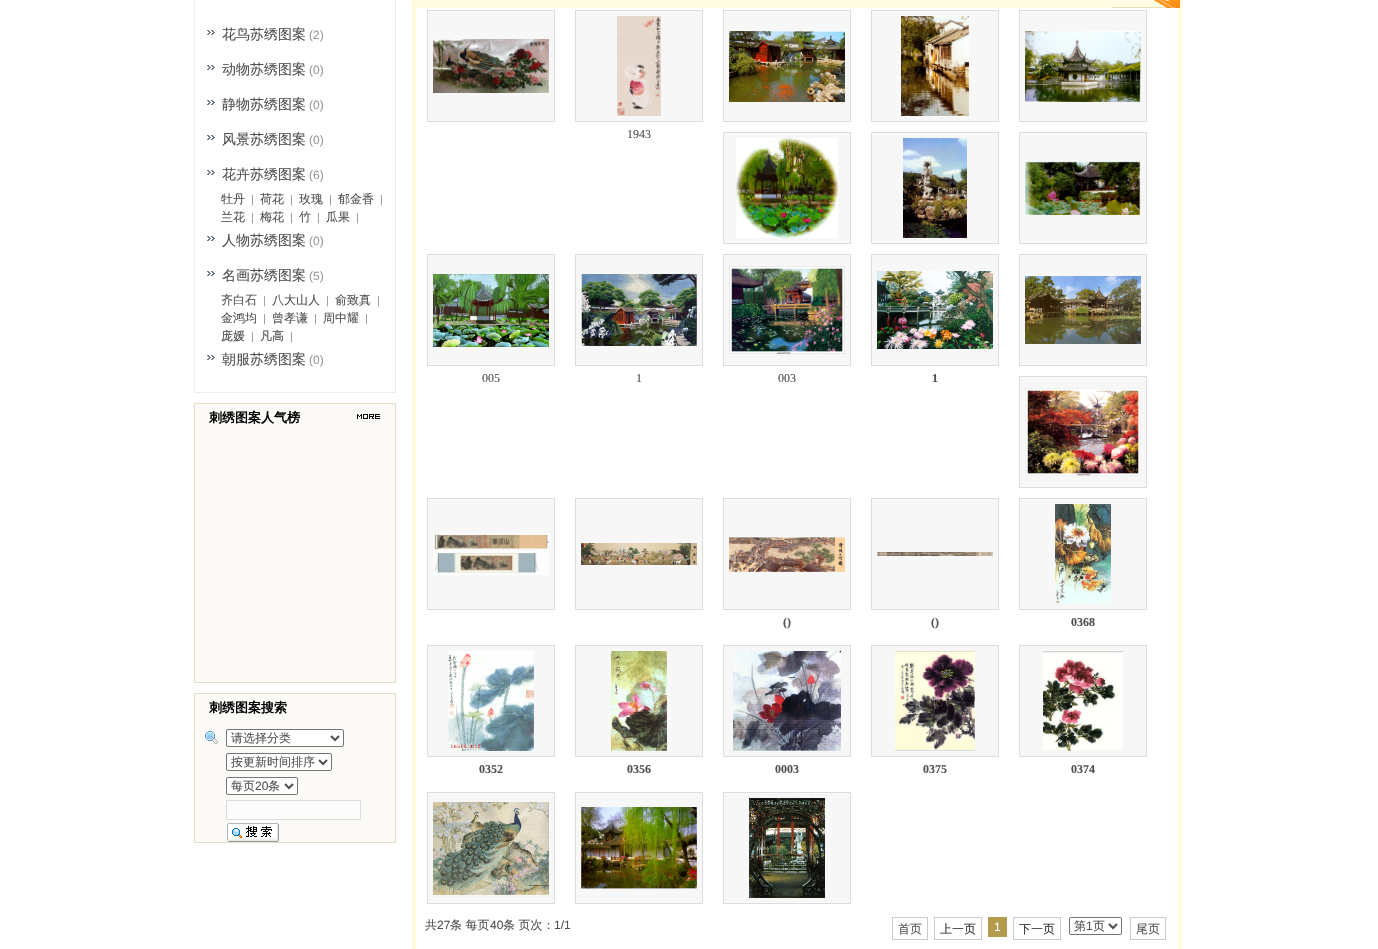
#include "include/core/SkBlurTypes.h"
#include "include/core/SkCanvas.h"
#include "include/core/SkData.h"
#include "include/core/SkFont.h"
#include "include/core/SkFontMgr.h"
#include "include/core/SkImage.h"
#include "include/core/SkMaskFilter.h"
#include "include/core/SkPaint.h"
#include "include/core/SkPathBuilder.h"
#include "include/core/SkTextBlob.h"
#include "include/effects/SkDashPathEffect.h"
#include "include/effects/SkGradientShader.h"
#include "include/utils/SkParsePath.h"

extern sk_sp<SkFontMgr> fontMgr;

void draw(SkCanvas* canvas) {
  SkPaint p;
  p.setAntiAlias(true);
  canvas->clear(SK_ColorWHITE);
  p.setStyle(SkPaint::kStroke_Style);
  p.setStrokeWidth(1);
  p.setColor(SkColorSetRGB(237, 237, 237));
  canvas->drawRect(SkRect::MakeLTRB(194.5f, -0.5f, 395.5f, 392.5f), p);
  canvas->drawImageRect(SkImages::DeferredFromEncodedData(SkData::MakeFromFileName("images/1.png")), SkRect::MakeLTRB(207, 30, 215, 35), SkSamplingOptions());
  canvas->drawImageRect(SkImages::DeferredFromEncodedData(SkData::MakeFromFileName("images/1.png")), SkRect::MakeLTRB(207, 65, 215, 70), SkSamplingOptions());
  canvas->drawImageRect(SkImages::DeferredFromEncodedData(SkData::MakeFromFileName("images/1.png")), SkRect::MakeLTRB(207, 100, 215, 105), SkSamplingOptions());
  canvas->drawImageRect(SkImages::DeferredFromEncodedData(SkData::MakeFromFileName("images/1.png")), SkRect::MakeLTRB(207, 135, 215, 140), SkSamplingOptions());
  canvas->drawImageRect(SkImages::DeferredFromEncodedData(SkData::MakeFromFileName("images/1.png")), SkRect::MakeLTRB(207, 170, 215, 175), SkSamplingOptions());
  canvas->drawImageRect(SkImages::DeferredFromEncodedData(SkData::MakeFromFileName("images/1.png")), SkRect::MakeLTRB(207, 236, 215, 241), SkSamplingOptions());
  canvas->drawImageRect(SkImages::DeferredFromEncodedData(SkData::MakeFromFileName("images/1.png")), SkRect::MakeLTRB(207, 271, 215, 276), SkSamplingOptions());
  canvas->drawImageRect(SkImages::DeferredFromEncodedData(SkData::MakeFromFileName("images/1.png")), SkRect::MakeLTRB(207, 355, 215, 360), SkSamplingOptions());
  p.setStyle(SkPaint::kFill_Style);
  p.setColor(SkColorSetRGB(255, 251, 221));
  canvas->drawRect(SkRect::MakeLTRB(412, 0, 416, 949), p);
  canvas->drawRect(SkRect::MakeLTRB(1178, 0, 1182, 949), p);
  p.setColor(SkColorSetRGB(255, 252, 228));
  canvas->drawRect(SkRect::MakeLTRB(415, 0, 1112, 8), p);
  canvas->drawImageRect(SkImages::DeferredFromEncodedData(SkData::MakeFromFileName("images/2.png")), SkRect::MakeLTRB(1112, 0, 1182, 8), SkSamplingOptions());
  p.setColor(SkColorSetRGB(247, 247, 247));
  canvas->drawRect(SkRect::MakeLTRB(427.5f, 10.5f, 554.5f, 121.5f), p);
  p.setStyle(SkPaint::kStroke_Style);
  p.setColor(SkColorSetRGB(221, 221, 221));
  canvas->drawRect(SkRect::MakeLTRB(427.5f, 10.5f, 554.5f, 121.5f), p);
  canvas->drawImageRect(SkImages::DeferredFromEncodedData(SkData::MakeFromFileName("images/3.png")), SkRect::MakeLTRB(433, 39, 549, 93), SkSamplingOptions());
  p.setStyle(SkPaint::kFill_Style);
  p.setColor(SkColorSetRGB(247, 247, 247));
  canvas->drawRect(SkRect::MakeLTRB(723.5f, 10.5f, 850.5f, 121.5f), p);
  p.setStyle(SkPaint::kStroke_Style);
  p.setColor(SkColorSetRGB(221, 221, 221));
  canvas->drawRect(SkRect::MakeLTRB(723.5f, 10.5f, 850.5f, 121.5f), p);
  canvas->drawImageRect(SkImages::DeferredFromEncodedData(SkData::MakeFromFileName("images/4.png")), SkRect::MakeLTRB(729, 31, 845, 102), SkSamplingOptions());
  p.setStyle(SkPaint::kFill_Style);
  p.setColor(SkColorSetRGB(247, 247, 247));
  canvas->drawRect(SkRect::MakeLTRB(871.5f, 10.5f, 998.5f, 121.5f), p);
  p.setStyle(SkPaint::kStroke_Style);
  p.setColor(SkColorSetRGB(221, 221, 221));
  canvas->drawRect(SkRect::MakeLTRB(871.5f, 10.5f, 998.5f, 121.5f), p);
  canvas->drawImageRect(SkImages::DeferredFromEncodedData(SkData::MakeFromFileName("images/5.png")), SkRect::MakeLTRB(901, 16, 969, 116), SkSamplingOptions());
  p.setStyle(SkPaint::kFill_Style);
  p.setColor(SkColorSetRGB(247, 247, 247));
  canvas->drawRect(SkRect::MakeLTRB(1019.5f, 10.5f, 1146.5f, 121.5f), p);
  p.setStyle(SkPaint::kStroke_Style);
  p.setColor(SkColorSetRGB(221, 221, 221));
  canvas->drawRect(SkRect::MakeLTRB(1019.5f, 10.5f, 1146.5f, 121.5f), p);
  canvas->drawImageRect(SkImages::DeferredFromEncodedData(SkData::MakeFromFileName("images/6.png")), SkRect::MakeLTRB(1025, 31, 1141, 102), SkSamplingOptions());
  p.setStyle(SkPaint::kFill_Style);
  p.setColor(SkColorSetRGB(247, 247, 247));
  canvas->drawRect(SkRect::MakeLTRB(575.5f, 10.5f, 702.5f, 121.5f), p);
  p.setStyle(SkPaint::kStroke_Style);
  p.setColor(SkColorSetRGB(221, 221, 221));
  canvas->drawRect(SkRect::MakeLTRB(575.5f, 10.5f, 702.5f, 121.5f), p);
  canvas->drawImageRect(SkImages::DeferredFromEncodedData(SkData::MakeFromFileName("images/7.png")), SkRect::MakeLTRB(617, 16, 661, 116), SkSamplingOptions());
  p.setStyle(SkPaint::kFill_Style);
  p.setColor(SkColorSetRGB(247, 247, 247));
  canvas->drawRect(SkRect::MakeLTRB(723.5f, 132.5f, 850.5f, 243.5f), p);
  p.setStyle(SkPaint::kStroke_Style);
  p.setColor(SkColorSetRGB(221, 221, 221));
  canvas->drawRect(SkRect::MakeLTRB(723.5f, 132.5f, 850.5f, 243.5f), p);
  canvas->drawImageRect(SkImages::DeferredFromEncodedData(SkData::MakeFromFileName("images/8.png")), SkRect::MakeLTRB(736, 138, 838, 238), SkSamplingOptions());
  p.setStyle(SkPaint::kFill_Style);
  p.setColor(SkColorSetRGB(247, 247, 247));
  canvas->drawRect(SkRect::MakeLTRB(871.5f, 132.5f, 998.5f, 243.5f), p);
  p.setStyle(SkPaint::kStroke_Style);
  p.setColor(SkColorSetRGB(221, 221, 221));
  canvas->drawRect(SkRect::MakeLTRB(871.5f, 132.5f, 998.5f, 243.5f), p);
  canvas->drawImageRect(SkImages::DeferredFromEncodedData(SkData::MakeFromFileName("images/9.png")), SkRect::MakeLTRB(903, 138, 967, 238), SkSamplingOptions());
  p.setStyle(SkPaint::kFill_Style);
  p.setColor(SkColorSetRGB(247, 247, 247));
  canvas->drawRect(SkRect::MakeLTRB(1019.5f, 132.5f, 1146.5f, 243.5f), p);
  p.setStyle(SkPaint::kStroke_Style);
  p.setColor(SkColorSetRGB(221, 221, 221));
  canvas->drawRect(SkRect::MakeLTRB(1019.5f, 132.5f, 1146.5f, 243.5f), p);
  canvas->drawImageRect(SkImages::DeferredFromEncodedData(SkData::MakeFromFileName("images/10.png")), SkRect::MakeLTRB(1025, 161, 1141, 215), SkSamplingOptions());
  p.setStyle(SkPaint::kFill_Style);
  p.setColor(SkColorSetRGB(247, 247, 247));
  canvas->drawRect(SkRect::MakeLTRB(1019.5f, 254.5f, 1146.5f, 365.5f), p);
  p.setStyle(SkPaint::kStroke_Style);
  p.setColor(SkColorSetRGB(221, 221, 221));
  canvas->drawRect(SkRect::MakeLTRB(1019.5f, 254.5f, 1146.5f, 365.5f), p);
  canvas->drawImageRect(SkImages::DeferredFromEncodedData(SkData::MakeFromFileName("images/11.png")), SkRect::MakeLTRB(1025, 276, 1141, 344), SkSamplingOptions());
  p.setStyle(SkPaint::kFill_Style);
  p.setColor(SkColorSetRGB(247, 247, 247));
  canvas->drawRect(SkRect::MakeLTRB(427.5f, 254.5f, 554.5f, 365.5f), p);
  p.setStyle(SkPaint::kStroke_Style);
  p.setColor(SkColorSetRGB(221, 221, 221));
  canvas->drawRect(SkRect::MakeLTRB(427.5f, 254.5f, 554.5f, 365.5f), p);
  canvas->drawImageRect(SkImages::DeferredFromEncodedData(SkData::MakeFromFileName("images/12.png")), SkRect::MakeLTRB(433, 274, 549, 347), SkSamplingOptions());
  p.setStyle(SkPaint::kFill_Style);
  p.setColor(SkColorSetRGB(247, 247, 247));
  canvas->drawRect(SkRect::MakeLTRB(575.5f, 254.5f, 702.5f, 365.5f), p);
  p.setStyle(SkPaint::kStroke_Style);
  p.setColor(SkColorSetRGB(221, 221, 221));
  canvas->drawRect(SkRect::MakeLTRB(575.5f, 254.5f, 702.5f, 365.5f), p);
  canvas->drawImageRect(SkImages::DeferredFromEncodedData(SkData::MakeFromFileName("images/13.png")), SkRect::MakeLTRB(581, 274, 697, 346), SkSamplingOptions());
  p.setStyle(SkPaint::kFill_Style);
  p.setColor(SkColorSetRGB(247, 247, 247));
  canvas->drawRect(SkRect::MakeLTRB(723.5f, 254.5f, 850.5f, 365.5f), p);
  p.setStyle(SkPaint::kStroke_Style);
  p.setColor(SkColorSetRGB(221, 221, 221));
  canvas->drawRect(SkRect::MakeLTRB(723.5f, 254.5f, 850.5f, 365.5f), p);
  canvas->drawImageRect(SkImages::DeferredFromEncodedData(SkData::MakeFromFileName("images/14.png")), SkRect::MakeLTRB(729, 266, 845, 354), SkSamplingOptions());
  p.setStyle(SkPaint::kFill_Style);
  p.setColor(SkColorSetRGB(247, 247, 247));
  canvas->drawRect(SkRect::MakeLTRB(871.5f, 254.5f, 998.5f, 365.5f), p);
  p.setStyle(SkPaint::kStroke_Style);
  p.setColor(SkColorSetRGB(221, 221, 221));
  canvas->drawRect(SkRect::MakeLTRB(871.5f, 254.5f, 998.5f, 365.5f), p);
  canvas->drawImageRect(SkImages::DeferredFromEncodedData(SkData::MakeFromFileName("images/15.png")), SkRect::MakeLTRB(877, 271, 993, 349), SkSamplingOptions());
  p.setStyle(SkPaint::kFill_Style);
  p.setColor(SkColorSetRGB(247, 247, 247));
  canvas->drawRect(SkRect::MakeLTRB(1019.5f, 376.5f, 1146.5f, 487.5f), p);
  p.setStyle(SkPaint::kStroke_Style);
  p.setColor(SkColorSetRGB(221, 221, 221));
  canvas->drawRect(SkRect::MakeLTRB(1019.5f, 376.5f, 1146.5f, 487.5f), p);
  canvas->drawImageRect(SkImages::DeferredFromEncodedData(SkData::MakeFromFileName("images/16.png")), SkRect::MakeLTRB(1025, 388, 1141, 476), SkSamplingOptions());
  p.setStyle(SkPaint::kFill_Style);
  p.setColor(SkColorSetRGB(247, 247, 247));
  canvas->drawRect(SkRect::MakeLTRB(427.5f, 498.5f, 554.5f, 609.5f), p);
  p.setStyle(SkPaint::kStroke_Style);
  p.setColor(SkColorSetRGB(221, 221, 221));
  canvas->drawRect(SkRect::MakeLTRB(427.5f, 498.5f, 554.5f, 609.5f), p);
  canvas->drawImageRect(SkImages::DeferredFromEncodedData(SkData::MakeFromFileName("images/17.png")), SkRect::MakeLTRB(433, 533, 549, 575), SkSamplingOptions());
  p.setStyle(SkPaint::kFill_Style);
  p.setColor(SkColorSetRGB(247, 247, 247));
  canvas->drawRect(SkRect::MakeLTRB(575.5f, 498.5f, 702.5f, 609.5f), p);
  p.setStyle(SkPaint::kStroke_Style);
  p.setColor(SkColorSetRGB(221, 221, 221));
  canvas->drawRect(SkRect::MakeLTRB(575.5f, 498.5f, 702.5f, 609.5f), p);
  canvas->drawImageRect(SkImages::DeferredFromEncodedData(SkData::MakeFromFileName("images/18.png")), SkRect::MakeLTRB(581, 543, 697, 565), SkSamplingOptions());
  p.setStyle(SkPaint::kFill_Style);
  p.setColor(SkColorSetRGB(247, 247, 247));
  canvas->drawRect(SkRect::MakeLTRB(723.5f, 498.5f, 850.5f, 609.5f), p);
  p.setStyle(SkPaint::kStroke_Style);
  p.setColor(SkColorSetRGB(221, 221, 221));
  canvas->drawRect(SkRect::MakeLTRB(723.5f, 498.5f, 850.5f, 609.5f), p);
  canvas->drawImageRect(SkImages::DeferredFromEncodedData(SkData::MakeFromFileName("images/19.png")), SkRect::MakeLTRB(729, 537, 845, 572), SkSamplingOptions());
  p.setStyle(SkPaint::kFill_Style);
  p.setColor(SkColorSetRGB(247, 247, 247));
  canvas->drawRect(SkRect::MakeLTRB(871.5f, 498.5f, 998.5f, 609.5f), p);
  p.setStyle(SkPaint::kStroke_Style);
  p.setColor(SkColorSetRGB(221, 221, 221));
  canvas->drawRect(SkRect::MakeLTRB(871.5f, 498.5f, 998.5f, 609.5f), p);
  canvas->drawImageRect(SkImages::DeferredFromEncodedData(SkData::MakeFromFileName("images/20.png")), SkRect::MakeLTRB(877, 552, 993, 556), SkSamplingOptions());
  p.setStyle(SkPaint::kFill_Style);
  p.setColor(SkColorSetRGB(247, 247, 247));
  canvas->drawRect(SkRect::MakeLTRB(1019.5f, 498.5f, 1146.5f, 609.5f), p);
  p.setStyle(SkPaint::kStroke_Style);
  p.setColor(SkColorSetRGB(221, 221, 221));
  canvas->drawRect(SkRect::MakeLTRB(1019.5f, 498.5f, 1146.5f, 609.5f), p);
  canvas->drawImageRect(SkImages::DeferredFromEncodedData(SkData::MakeFromFileName("images/21.png")), SkRect::MakeLTRB(1055, 504, 1111, 604), SkSamplingOptions());
  p.setStyle(SkPaint::kFill_Style);
  p.setColor(SkColorSetRGB(247, 247, 247));
  canvas->drawRect(SkRect::MakeLTRB(427.5f, 645.5f, 554.5f, 756.5f), p);
  p.setStyle(SkPaint::kStroke_Style);
  p.setColor(SkColorSetRGB(221, 221, 221));
  canvas->drawRect(SkRect::MakeLTRB(427.5f, 645.5f, 554.5f, 756.5f), p);
  canvas->drawImageRect(SkImages::DeferredFromEncodedData(SkData::MakeFromFileName("images/22.png")), SkRect::MakeLTRB(448, 651, 534, 751), SkSamplingOptions());
  p.setStyle(SkPaint::kFill_Style);
  p.setColor(SkColorSetRGB(247, 247, 247));
  canvas->drawRect(SkRect::MakeLTRB(575.5f, 645.5f, 702.5f, 756.5f), p);
  p.setStyle(SkPaint::kStroke_Style);
  p.setColor(SkColorSetRGB(221, 221, 221));
  canvas->drawRect(SkRect::MakeLTRB(575.5f, 645.5f, 702.5f, 756.5f), p);
  canvas->drawImageRect(SkImages::DeferredFromEncodedData(SkData::MakeFromFileName("images/23.png")), SkRect::MakeLTRB(611, 651, 667, 751), SkSamplingOptions());
  p.setStyle(SkPaint::kFill_Style);
  p.setColor(SkColorSetRGB(247, 247, 247));
  canvas->drawRect(SkRect::MakeLTRB(723.5f, 645.5f, 850.5f, 756.5f), p);
  p.setStyle(SkPaint::kStroke_Style);
  p.setColor(SkColorSetRGB(221, 221, 221));
  canvas->drawRect(SkRect::MakeLTRB(723.5f, 645.5f, 850.5f, 756.5f), p);
  canvas->drawImageRect(SkImages::DeferredFromEncodedData(SkData::MakeFromFileName("images/24.png")), SkRect::MakeLTRB(733, 651, 841, 751), SkSamplingOptions());
  p.setStyle(SkPaint::kFill_Style);
  p.setColor(SkColorSetRGB(247, 247, 247));
  canvas->drawRect(SkRect::MakeLTRB(871.5f, 645.5f, 998.5f, 756.5f), p);
  p.setStyle(SkPaint::kStroke_Style);
  p.setColor(SkColorSetRGB(221, 221, 221));
  canvas->drawRect(SkRect::MakeLTRB(871.5f, 645.5f, 998.5f, 756.5f), p);
  canvas->drawImageRect(SkImages::DeferredFromEncodedData(SkData::MakeFromFileName("images/25.png")), SkRect::MakeLTRB(895, 651, 975, 751), SkSamplingOptions());
  p.setStyle(SkPaint::kFill_Style);
  p.setColor(SkColorSetRGB(247, 247, 247));
  canvas->drawRect(SkRect::MakeLTRB(1019.5f, 645.5f, 1146.5f, 756.5f), p);
  p.setStyle(SkPaint::kStroke_Style);
  p.setColor(SkColorSetRGB(221, 221, 221));
  canvas->drawRect(SkRect::MakeLTRB(1019.5f, 645.5f, 1146.5f, 756.5f), p);
  canvas->drawImageRect(SkImages::DeferredFromEncodedData(SkData::MakeFromFileName("images/26.png")), SkRect::MakeLTRB(1043, 651, 1123, 751), SkSamplingOptions());
  p.setStyle(SkPaint::kFill_Style);
  p.setColor(SkColorSetRGB(247, 247, 247));
  canvas->drawRect(SkRect::MakeLTRB(427.5f, 792.5f, 554.5f, 903.5f), p);
  p.setStyle(SkPaint::kStroke_Style);
  p.setColor(SkColorSetRGB(221, 221, 221));
  canvas->drawRect(SkRect::MakeLTRB(427.5f, 792.5f, 554.5f, 903.5f), p);
  canvas->drawImageRect(SkImages::DeferredFromEncodedData(SkData::MakeFromFileName("images/27.png")), SkRect::MakeLTRB(433, 802, 549, 895), SkSamplingOptions());
  p.setStyle(SkPaint::kFill_Style);
  p.setColor(SkColorSetRGB(247, 247, 247));
  canvas->drawRect(SkRect::MakeLTRB(575.5f, 792.5f, 702.5f, 903.5f), p);
  p.setStyle(SkPaint::kStroke_Style);
  p.setColor(SkColorSetRGB(221, 221, 221));
  canvas->drawRect(SkRect::MakeLTRB(575.5f, 792.5f, 702.5f, 903.5f), p);
  canvas->drawImageRect(SkImages::DeferredFromEncodedData(SkData::MakeFromFileName("images/28.png")), SkRect::MakeLTRB(581, 807, 697, 889), SkSamplingOptions());
  p.setStyle(SkPaint::kFill_Style);
  p.setColor(SkColorSetRGB(247, 247, 247));
  canvas->drawRect(SkRect::MakeLTRB(723.5f, 792.5f, 850.5f, 903.5f), p);
  p.setStyle(SkPaint::kStroke_Style);
  p.setColor(SkColorSetRGB(221, 221, 221));
  canvas->drawRect(SkRect::MakeLTRB(723.5f, 792.5f, 850.5f, 903.5f), p);
  canvas->drawImageRect(SkImages::DeferredFromEncodedData(SkData::MakeFromFileName("images/29.png")), SkRect::MakeLTRB(749, 798, 825, 898), SkSamplingOptions());
  p.setColor(SkColorSetRGB(204, 204, 204));
  canvas->drawRect(SkRect::MakeLTRB(892.5f, 917.5f, 927.5f, 939.5f), p);
  canvas->drawRect(SkRect::MakeLTRB(934.5f, 917.5f, 981.5f, 939.5f), p);
  p.setStyle(SkPaint::kFill_Style);
  p.setColor(SkColorSetRGB(178, 155, 74));
  canvas->drawRect(SkRect::MakeLTRB(988, 917, 1007, 937), p);
  p.setStyle(SkPaint::kStroke_Style);
  p.setColor(SkColorSetRGB(204, 204, 204));
  canvas->drawRect(SkRect::MakeLTRB(1013.5f, 917.5f, 1060.5f, 939.5f), p);
  p.setColor(SkColorSetRGB(118, 118, 118));
  canvas->drawRoundRect(SkRect::MakeLTRB(1069.5f, 917.5f, 1121.5f, 934.5f), 1.5f, 1.5f, p);
  p.setStrokeWidth(2);
  p.setColor(SkColorSetRGB(80, 80, 80));
  canvas->drawPath(SkPathBuilder().moveTo(1109, 924).lineTo(1113, 928).lineTo(1117, 924).detach(), p);
  p.setStrokeWidth(1);
  p.setColor(SkColorSetRGB(204, 204, 204));
  canvas->drawRect(SkRect::MakeLTRB(1130.5f, 917.5f, 1165.5f, 939.5f), p);
  p.setStyle(SkPaint::kFill_Style);
  p.setColor(SkColorSetRGB(251, 250, 247));
  canvas->drawRect(SkRect::MakeLTRB(194.5f, 403.5f, 395.5f, 682.5f), p);
  p.setStyle(SkPaint::kStroke_Style);
  p.setColor(SkColorSetRGB(231, 223, 197));
  canvas->drawRect(SkRect::MakeLTRB(194.5f, 403.5f, 395.5f, 682.5f), p);
  canvas->drawImageRect(SkImages::DeferredFromEncodedData(SkData::MakeFromFileName("images/30.png")), SkRect::MakeLTRB(357, 414, 380, 419), SkSamplingOptions());
  p.setStyle(SkPaint::kFill_Style);
  p.setColor(SkColorSetRGB(251, 250, 247));
  canvas->drawRect(SkRect::MakeLTRB(194.5f, 693.5f, 395.5f, 842.5f), p);
  p.setStyle(SkPaint::kStroke_Style);
  p.setColor(SkColorSetRGB(231, 223, 197));
  canvas->drawRect(SkRect::MakeLTRB(194.5f, 693.5f, 395.5f, 842.5f), p);
  canvas->drawImageRect(SkImages::DeferredFromEncodedData(SkData::MakeFromFileName("images/31.png")), SkRect::MakeLTRB(205, 731, 218, 744), SkSamplingOptions());
  p.setStyle(SkPaint::kFill_Style);
  p.setColor(SK_ColorWHITE);
  canvas->drawRoundRect(SkRect::MakeLTRB(226.5f, 729.5f, 343.5f, 746.5f), 1.5f, 1.5f, p);
  p.setStyle(SkPaint::kStroke_Style);
  p.setColor(SkColorSetRGB(118, 118, 118));
  canvas->drawRoundRect(SkRect::MakeLTRB(226.5f, 729.5f, 343.5f, 746.5f), 1.5f, 1.5f, p);
  p.setStrokeWidth(2);
  p.setColor(SkColorSetRGB(80, 80, 80));
  canvas->drawPath(SkPathBuilder().moveTo(331, 736).lineTo(335, 740).lineTo(339, 736).detach(), p);
  p.setStyle(SkPaint::kFill_Style);
  p.setColor(SK_ColorWHITE);
  canvas->drawRoundRect(SkRect::MakeLTRB(226.5f, 753.5f, 331.5f, 770.5f), 1.5f, 1.5f, p);
  p.setStyle(SkPaint::kStroke_Style);
  p.setStrokeWidth(1);
  p.setColor(SkColorSetRGB(118, 118, 118));
  canvas->drawRoundRect(SkRect::MakeLTRB(226.5f, 753.5f, 331.5f, 770.5f), 1.5f, 1.5f, p);
  p.setStrokeWidth(2);
  p.setColor(SkColorSetRGB(80, 80, 80));
  canvas->drawPath(SkPathBuilder().moveTo(319, 760).lineTo(323, 764).lineTo(327, 760).detach(), p);
  p.setStyle(SkPaint::kFill_Style);
  p.setColor(SK_ColorWHITE);
  canvas->drawRoundRect(SkRect::MakeLTRB(226.5f, 777.5f, 297.5f, 794.5f), 1.5f, 1.5f, p);
  p.setStyle(SkPaint::kStroke_Style);
  p.setStrokeWidth(1);
  p.setColor(SkColorSetRGB(118, 118, 118));
  canvas->drawRoundRect(SkRect::MakeLTRB(226.5f, 777.5f, 297.5f, 794.5f), 1.5f, 1.5f, p);
  p.setStrokeWidth(2);
  p.setColor(SkColorSetRGB(80, 80, 80));
  canvas->drawPath(SkPathBuilder().moveTo(285, 784).lineTo(289, 788).lineTo(293, 784).detach(), p);
  p.setStyle(SkPaint::kFill_Style);
  p.setColor(SkColorSetRGB(251, 251, 251));
  canvas->drawRect(SkRect::MakeLTRB(226.5f, 800.5f, 360.5f, 819.5f), p);
  p.setStyle(SkPaint::kStroke_Style);
  p.setStrokeWidth(1);
  p.setColor(SkColorSetRGB(221, 221, 221));
  canvas->drawRect(SkRect::MakeLTRB(226.5f, 800.5f, 360.5f, 819.5f), p);
  canvas->drawImageRect(SkImages::DeferredFromEncodedData(SkData::MakeFromFileName("images/32.png")), SkRect::MakeLTRB(227, 823, 279, 842), SkSamplingOptions());
  SkFont font1(fontMgr->matchFamilyStyle("WenQuanYi Zen Hei", SkFontStyle(500, SkFontStyle::kNormal_Width, SkFontStyle::kUpright_Slant)), 14);
  font1.setSubpixel(true);
  p.setStyle(SkPaint::kFill_Style);
  p.setColor(SkColorSetRGB(80, 80, 80));
  canvas->drawString("花鸟苏绣图案", 222, 39, font1, p);
  SkFont font2(fontMgr->matchFamilyStyle("Liberation Sans", SkFontStyle::Normal()), 12);
  font2.setSubpixel(true);
  p.setColor(SkColorSetRGB(153, 153, 153));
  canvas->drawString("(2)", 309, 39, font2, p);
  p.setColor(SkColorSetRGB(80, 80, 80));
  canvas->drawString("动物苏绣图案", 222, 74, font1, p);
  p.setColor(SkColorSetRGB(153, 153, 153));
  canvas->drawString("(0)", 309, 74, font2, p);
  p.setColor(SkColorSetRGB(80, 80, 80));
  canvas->drawString("静物苏绣图案", 222, 109, font1, p);
  p.setColor(SkColorSetRGB(153, 153, 153));
  canvas->drawString("(0)", 309, 109, font2, p);
  p.setColor(SkColorSetRGB(80, 80, 80));
  canvas->drawString("风景苏绣图案", 222, 144, font1, p);
  p.setColor(SkColorSetRGB(153, 153, 153));
  canvas->drawString("(0)", 309, 144, font2, p);
  p.setColor(SkColorSetRGB(80, 80, 80));
  canvas->drawString("花卉苏绣图案", 222, 179, font1, p);
  p.setColor(SkColorSetRGB(153, 153, 153));
  canvas->drawString("(6)", 309, 179, font2, p);
  SkFont font3(fontMgr->matchFamilyStyle("WenQuanYi Zen Hei", SkFontStyle(500, SkFontStyle::kNormal_Width, SkFontStyle::kUpright_Slant)), 12);
  font3.setSubpixel(true);
  p.setColor(SkColorSetRGB(80, 80, 80));
  canvas->drawString("牡丹", 221, 203, font3, p);
  SkFont font4(fontMgr->matchFamilyStyle("Liberation Sans", SkFontStyle::Normal()), 11);
  font4.setSubpixel(true);
  p.setColor(SkColorSetRGB(153, 153, 153));
  canvas->drawString("|", 251, 203, font4, p);
  p.setColor(SkColorSetRGB(80, 80, 80));
  canvas->drawString("荷花", 260, 203, font3, p);
  p.setColor(SkColorSetRGB(153, 153, 153));
  canvas->drawString("|", 290, 203, font4, p);
  p.setColor(SkColorSetRGB(80, 80, 80));
  canvas->drawString("玫瑰", 299, 203, font3, p);
  p.setColor(SkColorSetRGB(153, 153, 153));
  canvas->drawString("|", 329, 203, font4, p);
  p.setColor(SkColorSetRGB(80, 80, 80));
  canvas->drawString("郁金香", 338, 203, font3, p);
  p.setColor(SkColorSetRGB(153, 153, 153));
  canvas->drawString("|", 380, 203, font4, p);
  p.setColor(SkColorSetRGB(80, 80, 80));
  canvas->drawString("兰花", 221, 221, font3, p);
  p.setColor(SkColorSetRGB(153, 153, 153));
  canvas->drawString("|", 251, 221, font4, p);
  p.setColor(SkColorSetRGB(80, 80, 80));
  canvas->drawString("梅花", 260, 221, font3, p);
  p.setColor(SkColorSetRGB(153, 153, 153));
  canvas->drawString("|", 290, 221, font4, p);
  p.setColor(SkColorSetRGB(80, 80, 80));
  canvas->drawString("竹", 299, 221, font3, p);
  p.setColor(SkColorSetRGB(153, 153, 153));
  canvas->drawString("|", 317, 221, font4, p);
  p.setColor(SkColorSetRGB(80, 80, 80));
  canvas->drawString("瓜果", 326, 221, font3, p);
  p.setColor(SkColorSetRGB(153, 153, 153));
  canvas->drawString("|", 356, 221, font4, p);
  p.setColor(SkColorSetRGB(80, 80, 80));
  canvas->drawString("人物苏绣图案", 222, 245, font1, p);
  p.setColor(SkColorSetRGB(153, 153, 153));
  canvas->drawString("(0)", 309, 245, font2, p);
  p.setColor(SkColorSetRGB(80, 80, 80));
  canvas->drawString("名画苏绣图案", 222, 280, font1, p);
  p.setColor(SkColorSetRGB(153, 153, 153));
  canvas->drawString("(5)", 309, 280, font2, p);
  p.setColor(SkColorSetRGB(80, 80, 80));
  canvas->drawString("齐白石", 221, 304, font3, p);
  p.setColor(SkColorSetRGB(153, 153, 153));
  canvas->drawString("|", 263, 304, font4, p);
  p.setColor(SkColorSetRGB(80, 80, 80));
  canvas->drawString("八大山人", 272, 304, font3, p);
  p.setColor(SkColorSetRGB(153, 153, 153));
  canvas->drawString("|", 326, 304, font4, p);
  p.setColor(SkColorSetRGB(80, 80, 80));
  canvas->drawString("俞致真", 335, 304, font3, p);
  p.setColor(SkColorSetRGB(153, 153, 153));
  canvas->drawString("|", 377, 304, font4, p);
  p.setColor(SkColorSetRGB(80, 80, 80));
  canvas->drawString("金鸿均", 221, 322, font3, p);
  p.setColor(SkColorSetRGB(153, 153, 153));
  canvas->drawString("|", 263, 322, font4, p);
  p.setColor(SkColorSetRGB(80, 80, 80));
  canvas->drawString("曾孝谦", 272, 322, font3, p);
  p.setColor(SkColorSetRGB(153, 153, 153));
  canvas->drawString("|", 314, 322, font4, p);
  p.setColor(SkColorSetRGB(80, 80, 80));
  canvas->drawString("周中耀", 323, 322, font3, p);
  p.setColor(SkColorSetRGB(153, 153, 153));
  canvas->drawString("|", 365, 322, font4, p);
  p.setColor(SkColorSetRGB(80, 80, 80));
  canvas->drawString("庞媛", 221, 340, font3, p);
  p.setColor(SkColorSetRGB(153, 153, 153));
  canvas->drawString("|", 251, 340, font4, p);
  p.setColor(SkColorSetRGB(80, 80, 80));
  canvas->drawString("凡高", 260, 340, font3, p);
  p.setColor(SkColorSetRGB(153, 153, 153));
  canvas->drawString("|", 290, 340, font4, p);
  p.setColor(SkColorSetRGB(80, 80, 80));
  canvas->drawString("朝服苏绣图案", 222, 364, font1, p);
  p.setColor(SkColorSetRGB(153, 153, 153));
  canvas->drawString("(0)", 309, 364, font2, p);
  SkFont font5(fontMgr->matchFamilyStyle("Liberation Serif", SkFontStyle::Normal()), 12);
  font5.setSubpixel(true);
  p.setColor(SkColorSetRGB(80, 80, 80));
  canvas->drawString("1943", 627, 138, font5, p);
  canvas->drawString("005", 482, 382, font5, p);
  canvas->drawString("1", 636, 382, font5, p);
  canvas->drawString("003", 778, 382, font5, p);
  SkFont font6(fontMgr->matchFamilyStyle("Liberation Serif", SkFontStyle::Bold()), 12);
  font6.setSubpixel(true);
  canvas->drawString("1", 932, 382, font6, p);
  canvas->drawString("()", 783, 626, font6, p);
  canvas->drawString("()", 931, 626, font6, p);
  canvas->drawString("0368", 1071, 626, font6, p);
  canvas->drawString("0352", 479, 773, font6, p);
  canvas->drawString("0356", 627, 773, font6, p);
  canvas->drawString("0003", 775, 773, font6, p);
  canvas->drawString("0375", 923, 773, font6, p);
  canvas->drawString("0374", 1071, 773, font6, p);
  canvas->drawString("共", 425, 929, font3, p);
  canvas->drawString("27", 437, 929, font2, p);
  canvas->drawString("条 每页", 450, 929, font3, p);
  canvas->drawString("40", 490, 929, font2, p);
  canvas->drawString("条 页次：", 503, 929, font3, p);
  canvas->drawString("1/1", 554, 929, font2, p);
  canvas->drawString("首页", 898, 933, font3, p);
  p.setColor(SkColorSetRGB(51, 51, 51));
  canvas->drawString("上一页", 940, 933, font3, p);
  p.setColor(SK_ColorWHITE);
  canvas->drawString("1", 994, 931, font2, p);
  p.setColor(SkColorSetRGB(51, 51, 51));
  canvas->drawString("下一页", 1019, 933, font3, p);
  p.setColor(SkColorSetRGB(80, 80, 80));
  canvas->drawString("第", 1074, 930, font3, p);
  canvas->drawString("1", 1086, 930, font2, p);
  canvas->drawString("页", 1093, 930, font3, p);
  canvas->drawString("尾页", 1136, 933, font3, p);
  SkFont font7(fontMgr->matchFamilyStyle("WenQuanYi Zen Hei", SkFontStyle::Bold()), 13);
  font7.setSubpixel(true);
  p.setColor(SK_ColorBLACK);
  canvas->drawString("刺绣图案人气榜", 209, 422, font7, p);
  canvas->drawString("刺绣图案搜索", 209, 712, font7, p);
  p.setColor(SkColorSetRGB(80, 80, 80));
  canvas->drawString("请选择分类", 231, 742, font3, p);
  canvas->drawString("按更新时间排序", 231, 766, font3, p);
  canvas->drawString("每页", 231, 790, font3, p);
  canvas->drawString("20", 255, 790, font2, p);
  canvas->drawString("条", 268, 790, font3, p);
}
